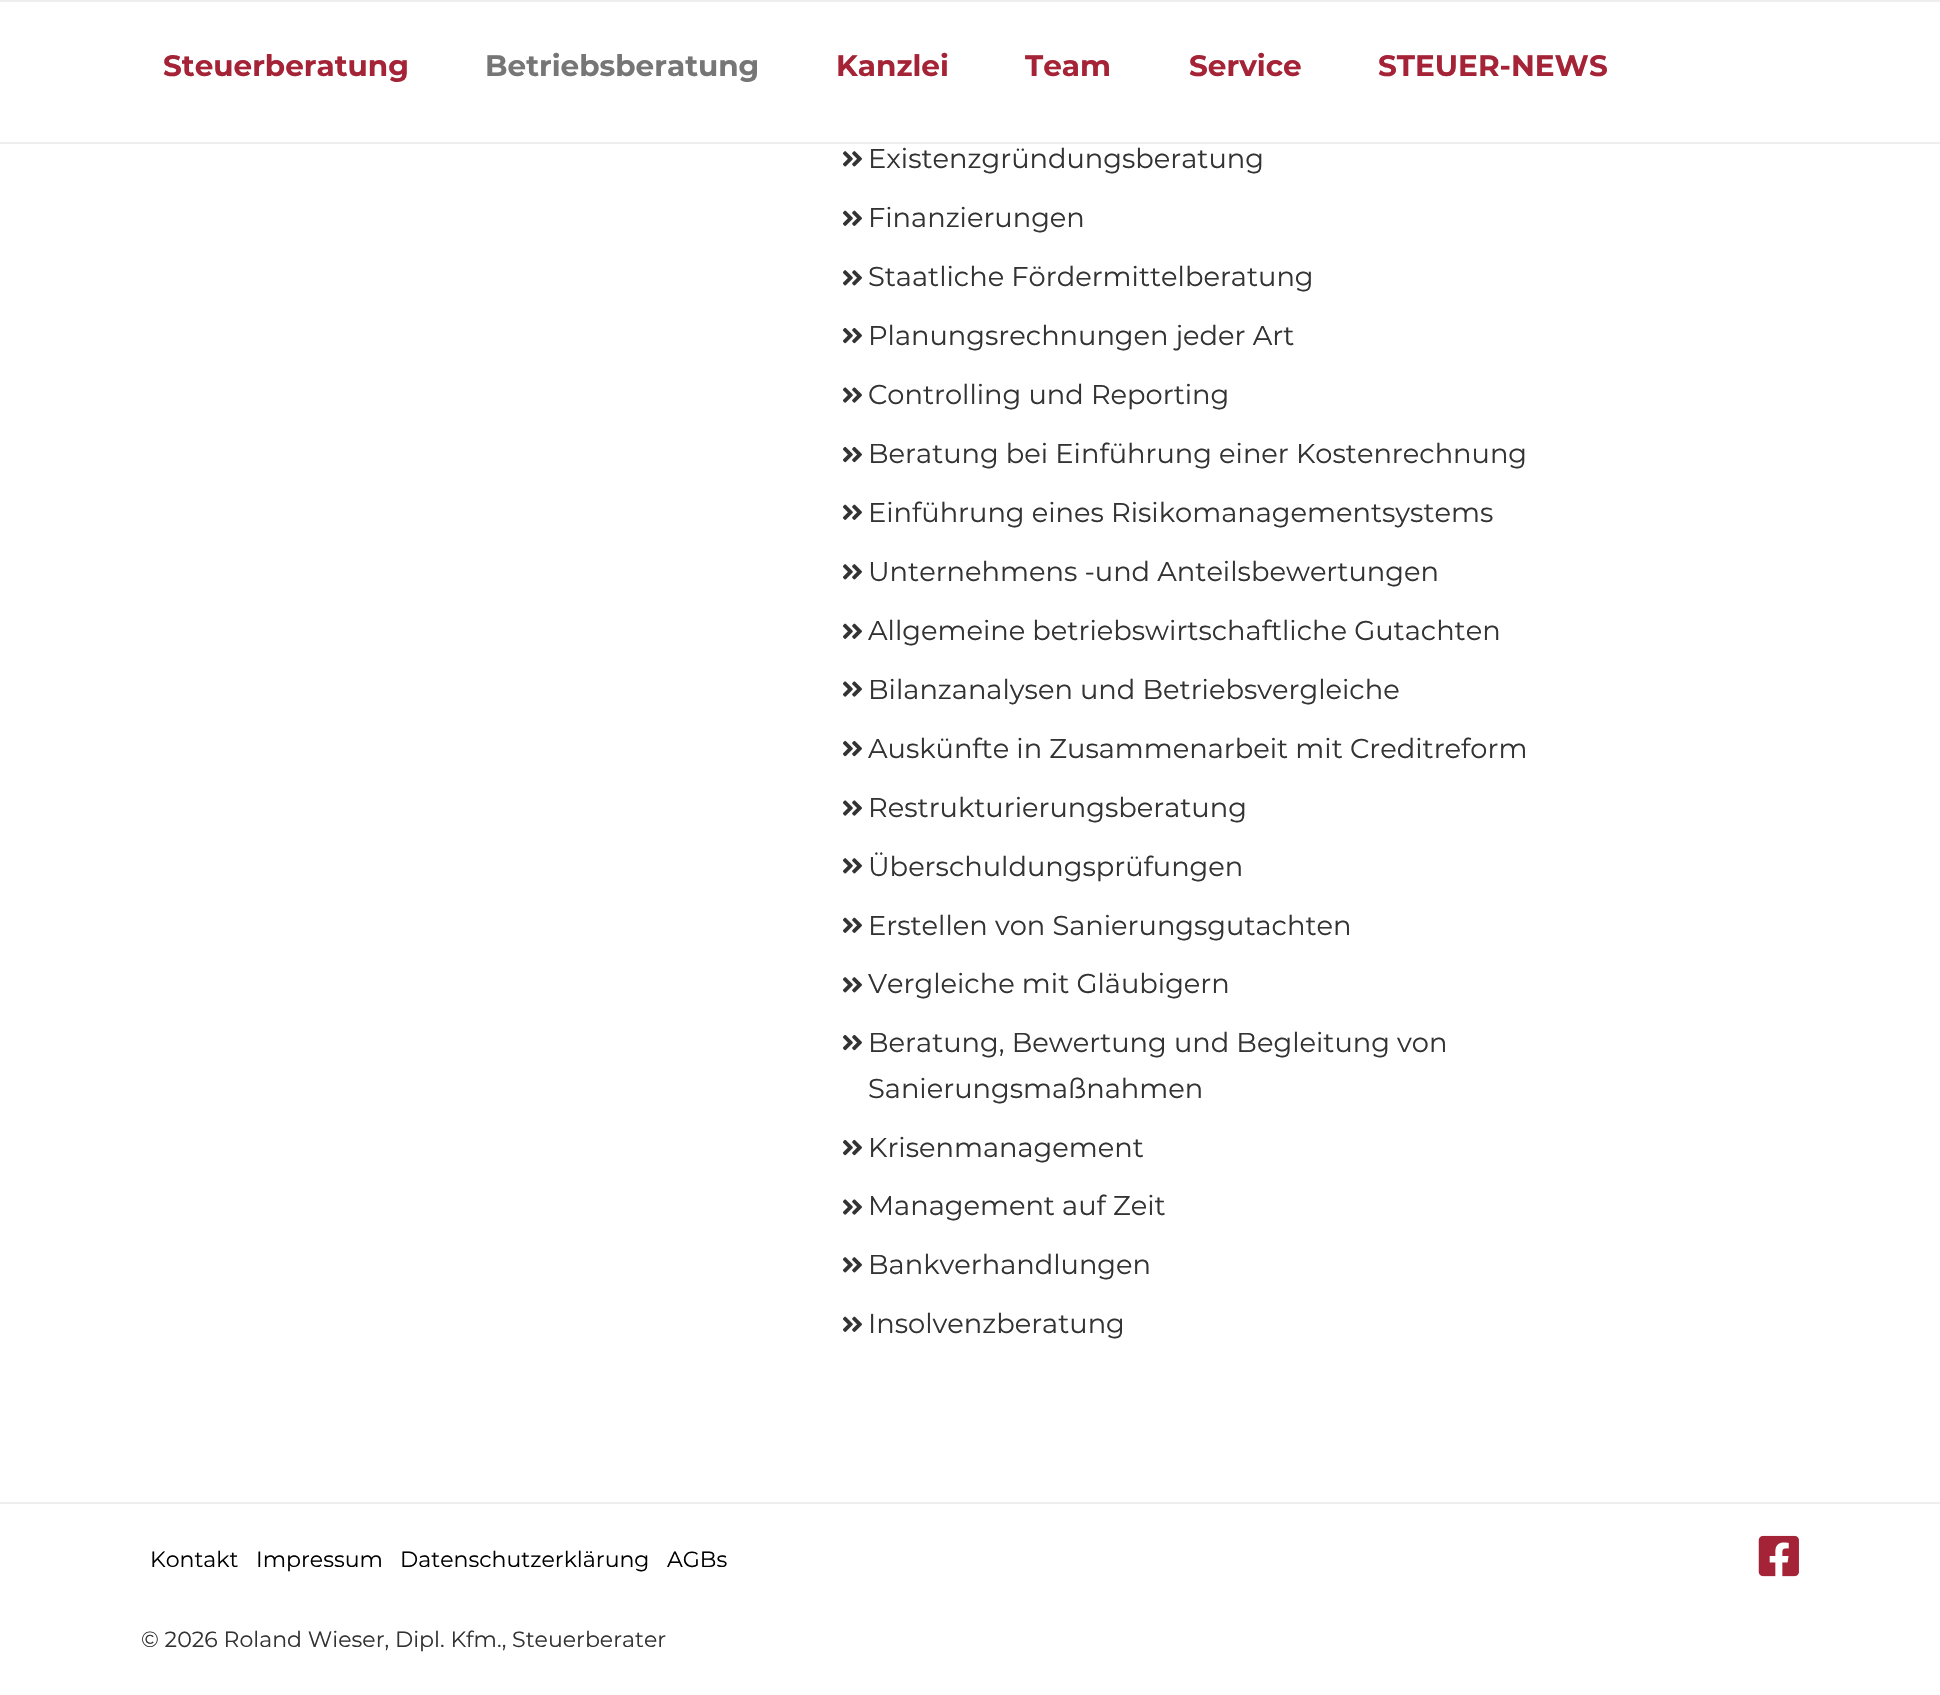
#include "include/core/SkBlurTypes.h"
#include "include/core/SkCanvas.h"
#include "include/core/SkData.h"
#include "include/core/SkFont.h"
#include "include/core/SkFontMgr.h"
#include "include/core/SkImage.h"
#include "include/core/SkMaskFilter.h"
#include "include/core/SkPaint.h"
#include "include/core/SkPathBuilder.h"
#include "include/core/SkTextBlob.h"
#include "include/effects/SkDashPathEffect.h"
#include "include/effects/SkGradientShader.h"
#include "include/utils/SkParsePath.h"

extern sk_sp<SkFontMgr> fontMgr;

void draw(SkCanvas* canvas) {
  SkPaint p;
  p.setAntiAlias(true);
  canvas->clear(SK_ColorWHITE);
  p.setColor(SkColorSetRGB(238, 238, 238));
  canvas->drawRect(SkRect::MakeLTRB(0, 0, 1940, 2), p);
  canvas->drawRect(SkRect::MakeLTRB(0, 142, 1940, 144), p);
  canvas->drawImageRect(SkImages::DeferredFromEncodedData(SkData::MakeFromFileName("images/1.png")), SkRect::MakeLTRB(843, 151, 862, 167), SkSamplingOptions());
  canvas->drawImageRect(SkImages::DeferredFromEncodedData(SkData::MakeFromFileName("images/2.png")), SkRect::MakeLTRB(843, 210, 862, 226), SkSamplingOptions());
  canvas->drawImageRect(SkImages::DeferredFromEncodedData(SkData::MakeFromFileName("images/1.png")), SkRect::MakeLTRB(843, 270, 862, 286), SkSamplingOptions());
  canvas->drawImageRect(SkImages::DeferredFromEncodedData(SkData::MakeFromFileName("images/3.png")), SkRect::MakeLTRB(843, 327, 862, 344), SkSamplingOptions());
  canvas->drawImageRect(SkImages::DeferredFromEncodedData(SkData::MakeFromFileName("images/4.png")), SkRect::MakeLTRB(843, 387, 862, 403), SkSamplingOptions());
  canvas->drawImageRect(SkImages::DeferredFromEncodedData(SkData::MakeFromFileName("images/3.png")), SkRect::MakeLTRB(843, 446, 862, 463), SkSamplingOptions());
  canvas->drawImageRect(SkImages::DeferredFromEncodedData(SkData::MakeFromFileName("images/2.png")), SkRect::MakeLTRB(843, 504, 862, 520), SkSamplingOptions());
  canvas->drawImageRect(SkImages::DeferredFromEncodedData(SkData::MakeFromFileName("images/1.png")), SkRect::MakeLTRB(843, 564, 862, 580), SkSamplingOptions());
  canvas->drawImageRect(SkImages::DeferredFromEncodedData(SkData::MakeFromFileName("images/2.png")), SkRect::MakeLTRB(843, 623, 862, 639), SkSamplingOptions());
  canvas->drawImageRect(SkImages::DeferredFromEncodedData(SkData::MakeFromFileName("images/4.png")), SkRect::MakeLTRB(843, 681, 862, 697), SkSamplingOptions());
  canvas->drawImageRect(SkImages::DeferredFromEncodedData(SkData::MakeFromFileName("images/3.png")), SkRect::MakeLTRB(843, 740, 862, 757), SkSamplingOptions());
  canvas->drawImageRect(SkImages::DeferredFromEncodedData(SkData::MakeFromFileName("images/4.png")), SkRect::MakeLTRB(843, 800, 862, 816), SkSamplingOptions());
  canvas->drawImageRect(SkImages::DeferredFromEncodedData(SkData::MakeFromFileName("images/1.png")), SkRect::MakeLTRB(843, 858, 862, 874), SkSamplingOptions());
  canvas->drawImageRect(SkImages::DeferredFromEncodedData(SkData::MakeFromFileName("images/2.png")), SkRect::MakeLTRB(843, 917, 862, 933), SkSamplingOptions());
  canvas->drawImageRect(SkImages::DeferredFromEncodedData(SkData::MakeFromFileName("images/1.png")), SkRect::MakeLTRB(843, 977, 862, 993), SkSamplingOptions());
  canvas->drawImageRect(SkImages::DeferredFromEncodedData(SkData::MakeFromFileName("images/3.png")), SkRect::MakeLTRB(843, 1034, 862, 1051), SkSamplingOptions());
  canvas->drawImageRect(SkImages::DeferredFromEncodedData(SkData::MakeFromFileName("images/3.png")), SkRect::MakeLTRB(843, 1139, 862, 1156), SkSamplingOptions());
  canvas->drawImageRect(SkImages::DeferredFromEncodedData(SkData::MakeFromFileName("images/4.png")), SkRect::MakeLTRB(843, 1199, 862, 1215), SkSamplingOptions());
  canvas->drawImageRect(SkImages::DeferredFromEncodedData(SkData::MakeFromFileName("images/1.png")), SkRect::MakeLTRB(843, 1257, 862, 1273), SkSamplingOptions());
  canvas->drawImageRect(SkImages::DeferredFromEncodedData(SkData::MakeFromFileName("images/2.png")), SkRect::MakeLTRB(843, 1316, 862, 1332), SkSamplingOptions());
  canvas->drawRect(SkRect::MakeLTRB(0, 1502, 1940, 1504), p);
  canvas->drawImageRect(SkImages::DeferredFromEncodedData(SkData::MakeFromFileName("images/5.png")), SkRect::MakeLTRB(1758, 1535, 1799, 1577), SkSamplingOptions());
  SkFont font1(fontMgr->matchFamilyStyle("Montserrat", SkFontStyle::Bold()), 29.5f);
  font1.setSubpixel(true);
  p.setColor(SkColorSetRGB(165, 35, 54));
  canvas->drawString("Steuerberatung", 163, 76, font1, p);
  p.setColor(SkColorSetRGB(118, 118, 118));
  canvas->drawString("Betriebsberatung", 485, 76, font1, p);
  p.setColor(SkColorSetRGB(165, 35, 54));
  canvas->drawString("Kanzlei", 836, 76, font1, p);
  canvas->drawString("Team", 1025, 76, font1, p);
  canvas->drawString("Service", 1189, 76, font1, p);
  canvas->drawString("STEUER-NEWS", 1378, 76, font1, p);
  SkFont font2(fontMgr->matchFamilyStyle("Montserrat", SkFontStyle::Normal()), 27.3f);
  font2.setSubpixel(true);
  p.setColor(SkColorSetRGB(51, 51, 51));
  canvas->drawString("Existenzgründungsberatung", 868, 168, font2, p);
  canvas->drawString("Finanzierungen", 868, 227, font2, p);
  canvas->drawString("Staatliche Fördermittelberatung", 868, 286, font2, p);
  canvas->drawString("Planungsrechnungen jeder Art", 868, 345, font2, p);
  canvas->drawString("Controlling und Reporting", 868, 404, font2, p);
  canvas->drawString("Beratung bei Einführung einer Kostenrechnung", 868, 463, font2, p);
  canvas->drawString("Einführung eines Risikomanagementsystems", 868, 522, font2, p);
  canvas->drawString("Unternehmens -und Anteilsbewertungen", 868, 581, font2, p);
  canvas->drawString("Allgemeine betriebswirtschaftliche Gutachten", 868, 640, font2, p);
  canvas->drawString("Bilanzanalysen und Betriebsvergleiche", 868, 699, font2, p);
  canvas->drawString("Auskünfte in Zusammenarbeit mit Creditreform", 868, 758, font2, p);
  canvas->drawString("Restrukturierungsberatung", 868, 817, font2, p);
  canvas->drawString("Überschuldungsprüfungen", 868, 876, font2, p);
  canvas->drawString("Erstellen von Sanierungsgutachten", 868, 935, font2, p);
  canvas->drawString("Vergleiche mit Gläubigern", 868, 993, font2, p);
  canvas->drawString("Beratung, Bewertung und Begleitung von", 868, 1052, font2, p);
  canvas->drawString("Sanierungsmaßnahmen", 868, 1098, font2, p);
  canvas->drawString("Krisenmanagement", 868, 1157, font2, p);
  canvas->drawString("Management auf Zeit", 868, 1215, font2, p);
  canvas->drawString("Bankverhandlungen", 868, 1274, font2, p);
  canvas->drawString("Insolvenzberatung", 868, 1333, font2, p);
  SkFont font3(fontMgr->matchFamilyStyle("Montserrat", SkFontStyle::Normal()), 22.05f);
  font3.setSubpixel(true);
  p.setColor(SK_ColorBLACK);
  canvas->drawString("Kontakt", 150, 1567, font3, p);
  canvas->drawString("Impressum", 256, 1567, font3, p);
  canvas->drawString("Datenschutzerklärung", 400, 1567, font3, p);
  canvas->drawString("AGBs", 667, 1567, font3, p);
  p.setColor(SkColorSetRGB(51, 51, 51));
  canvas->drawString("© 2026 Roland Wieser, Dipl. Kfm., Steuerberater", 141, 1647, font3, p);
}
